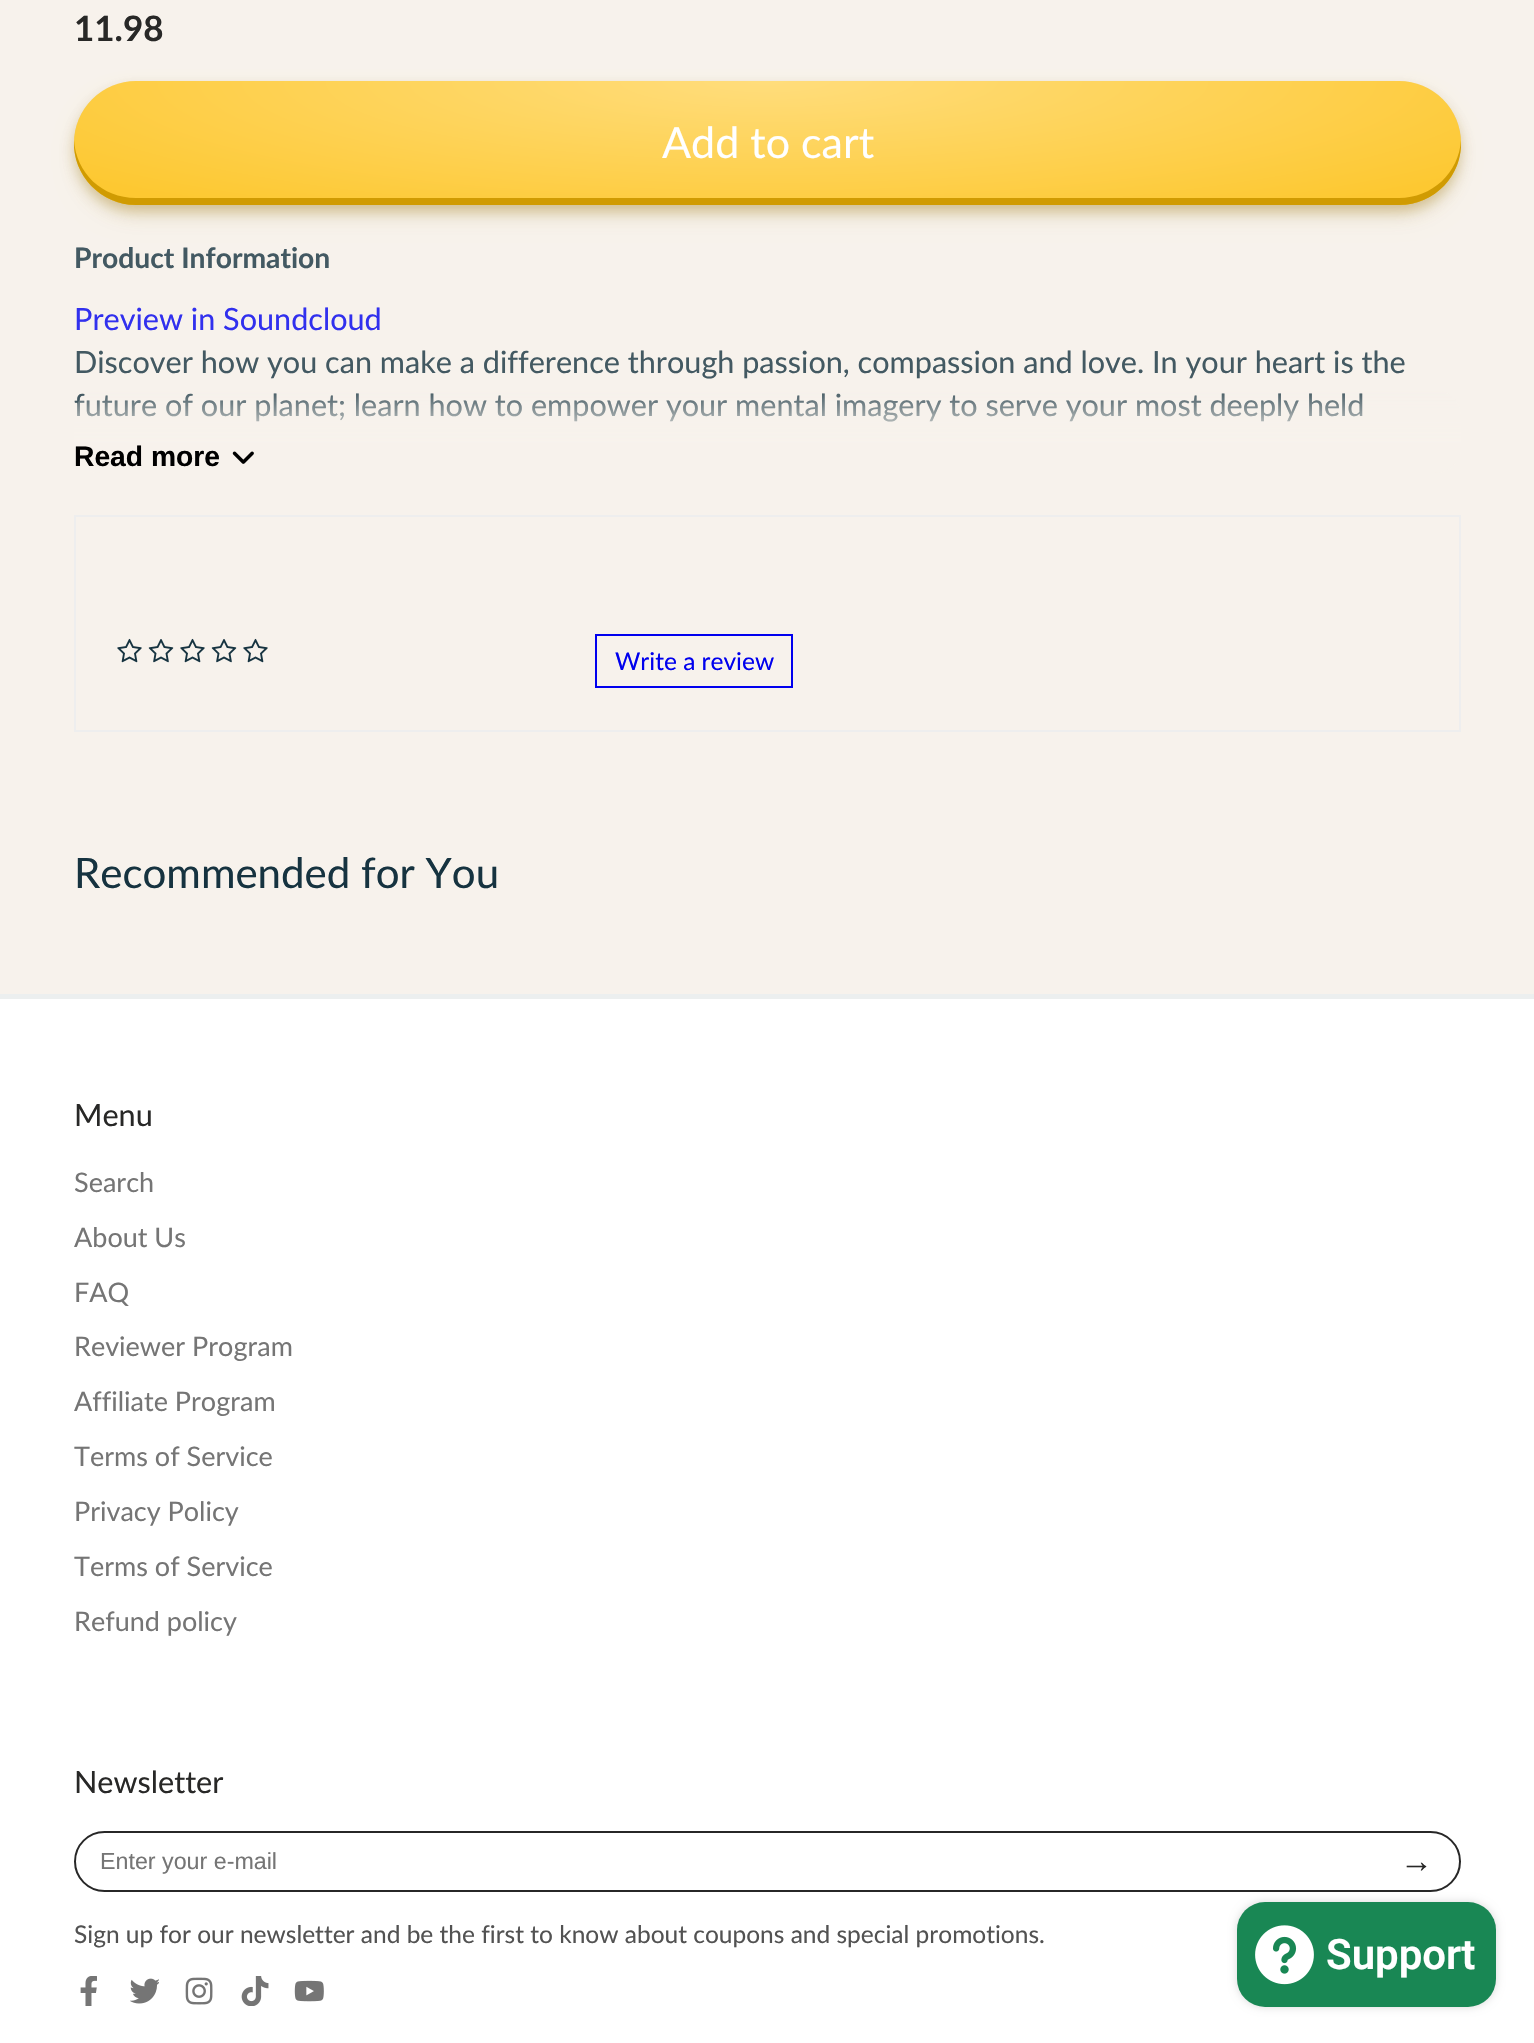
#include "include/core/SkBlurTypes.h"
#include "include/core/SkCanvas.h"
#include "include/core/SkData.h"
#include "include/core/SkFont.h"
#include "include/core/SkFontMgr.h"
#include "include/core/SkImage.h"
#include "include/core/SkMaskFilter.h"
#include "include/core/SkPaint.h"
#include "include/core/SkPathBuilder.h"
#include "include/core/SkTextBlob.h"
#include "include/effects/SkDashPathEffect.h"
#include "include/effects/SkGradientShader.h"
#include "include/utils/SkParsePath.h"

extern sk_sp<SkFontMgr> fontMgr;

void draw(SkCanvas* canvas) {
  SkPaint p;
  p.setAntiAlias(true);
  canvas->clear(SkColorSetRGB(247, 242, 236));
  p.setColor(SkColorSetARGB(38, 148, 110, 1));
  p.setMaskFilter(SkMaskFilter::MakeBlur(kNormal_SkBlurStyle, 13));
  canvas->drawRoundRect(SkRect::MakeLTRB(81, 100, 1454, 212), 56, 56, p);
  p.setMaskFilter(nullptr);
  p.setColor(SkColorSetARGB(77, 148, 110, 1));
  p.setMaskFilter(SkMaskFilter::MakeBlur(kNormal_SkBlurStyle, 6.5f));
  canvas->drawRoundRect(SkRect::MakeLTRB(74, 88, 1461, 212), 62, 62, p);
  p.setMaskFilter(nullptr);
  canvas->save();
  canvas->clipPath(SkPathBuilder().moveTo(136, 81).lineTo(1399, 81).cubicTo(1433, 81, 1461, 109, 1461, 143).cubicTo(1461, 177, 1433, 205, 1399, 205).lineTo(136, 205).cubicTo(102, 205, 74, 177, 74, 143).cubicTo(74, 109, 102, 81, 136, 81).close().detach(), true);
  p.setColor(SkColorSetARGB(38, 148, 110, 1));
  p.setMaskFilter(SkMaskFilter::MakeBlur(kNormal_SkBlurStyle, 13));
  canvas->drawRoundRect(SkRect::MakeLTRB(81, 100, 1454, 212), 56, 56, p);
  p.setMaskFilter(nullptr);
  p.setColor(SkColorSetARGB(77, 148, 110, 1));
  p.setMaskFilter(SkMaskFilter::MakeBlur(kNormal_SkBlurStyle, 6.5f));
  canvas->drawRoundRect(SkRect::MakeLTRB(74, 88, 1461, 212), 62, 62, p);
  p.setMaskFilter(nullptr);
  canvas->restore();
  {
    const SkColor colors[] = {SkColorSetRGB(255, 221, 124), SkColorSetRGB(253, 200, 49)};
    const float stops[] = {0, 0.9f};
    SkMatrix m = SkMatrix::Translate(767, 81).preScale(981, 176);
    p.setShader(SkGradientShader::MakeRadial({0, 0}, 1, colors, stops, 2, SkTileMode::kClamp, 0, &m));
    p.setAlpha(255);
  }
  canvas->drawRoundRect(SkRect::MakeLTRB(74, 81, 1461, 205), 62, 62, p);
  p.setShader(nullptr);
  p.setColor(SkColorSetRGB(208, 155, 2));
  canvas->drawPath(SkPathBuilder().moveTo(74, 140).cubicTo(72, 175, 101, 205, 136, 205).lineTo(1399, 205).cubicTo(1435, 205, 1463, 175, 1461, 140).cubicTo(1459, 173, 1432, 198, 1399, 198).lineTo(136, 198).cubicTo(102, 198, 76, 173, 74, 140).close().detach(), p);
  p.setStyle(SkPaint::kStroke_Style);
  p.setStrokeWidth(2);
  p.setColor(SkColorSetRGB(238, 238, 238));
  canvas->drawRect(SkRect::MakeLTRB(75, 516, 1460, 731), p);
  canvas->drawImageRect(SkImages::DeferredFromEncodedData(SkData::MakeFromFileName("images/2.png")), SkRect::MakeLTRB(117, 638, 142, 663), SkSamplingOptions());
  canvas->drawImageRect(SkImages::DeferredFromEncodedData(SkData::MakeFromFileName("images/3.png")), SkRect::MakeLTRB(148, 639, 174, 663), SkSamplingOptions());
  canvas->drawImageRect(SkImages::DeferredFromEncodedData(SkData::MakeFromFileName("images/2.png")), SkRect::MakeLTRB(180, 638, 205, 663), SkSamplingOptions());
  canvas->drawImageRect(SkImages::DeferredFromEncodedData(SkData::MakeFromFileName("images/3.png")), SkRect::MakeLTRB(211, 639, 237, 663), SkSamplingOptions());
  canvas->drawImageRect(SkImages::DeferredFromEncodedData(SkData::MakeFromFileName("images/2.png")), SkRect::MakeLTRB(243, 638, 268, 663), SkSamplingOptions());
  p.setColor(SkColorSetRGB(0, 0, 238));
  canvas->drawRect(SkRect::MakeLTRB(596, 635, 792, 687), p);
  p.setStyle(SkPaint::kFill_Style);
  p.setColor(SK_ColorWHITE);
  canvas->drawRect(SkRect::MakeLTRB(0, 999, 1534, 2043), p);
  p.setColor(SkColorSetRGB(236, 239, 239));
  canvas->drawRect(SkRect::MakeLTRB(0, 994, 1534, 999), p);
  p.setStyle(SkPaint::kStroke_Style);
  p.setColor(SkColorSetRGB(39, 39, 39));
  canvas->drawRoundRect(SkRect::MakeLTRB(75, 1832, 1460, 1891), 29.5f, 29.5f, p);
  canvas->drawImageRect(SkImages::DeferredFromEncodedData(SkData::MakeFromFileName("images/4.png")), SkRect::MakeLTRB(80, 1976, 97, 2006), SkSamplingOptions());
  canvas->drawImageRect(SkImages::DeferredFromEncodedData(SkData::MakeFromFileName("images/5.png")), SkRect::MakeLTRB(130, 1978, 159, 2004), SkSamplingOptions());
  canvas->drawImageRect(SkImages::DeferredFromEncodedData(SkData::MakeFromFileName("images/6.png")), SkRect::MakeLTRB(185, 1977, 213, 2005), SkSamplingOptions());
  canvas->drawImageRect(SkImages::DeferredFromEncodedData(SkData::MakeFromFileName("images/7.png")), SkRect::MakeLTRB(241, 1976, 269, 2006), SkSamplingOptions());
  canvas->drawImageRect(SkImages::DeferredFromEncodedData(SkData::MakeFromFileName("images/8.png")), SkRect::MakeLTRB(294, 1980, 324, 2002), SkSamplingOptions());
  p.setStyle(SkPaint::kFill_Style);
  p.setColor(SkColorSetARGB(38, 0, 0, 0));
  p.setMaskFilter(SkMaskFilter::MakeBlur(kNormal_SkBlurStyle, 4.5f));
  canvas->drawRoundRect(SkRect::MakeLTRB(1237, 1902, 1496, 2007), 28, 28, p);
  p.setMaskFilter(nullptr);
  p.setColor(SkColorSetRGB(25, 135, 84));
  canvas->drawRoundRect(SkRect::MakeLTRB(1237, 1902, 1496, 2007), 28, 28, p);
  canvas->drawImageRect(SkImages::DeferredFromEncodedData(SkData::MakeFromFileName("images/9.png")), SkRect::MakeLTRB(1255, 1925, 1314, 1985), SkSamplingOptions());
  SkFont font1(fontMgr->matchFamilyStyle("Lato", SkFontStyle::Bold()), 35);
  font1.setSubpixel(true);
  p.setColor(SkColorSetRGB(40, 40, 39));
  canvas->drawString("11.98", 74, 41, font1, p);
  SkFont font2(fontMgr->matchFamilyStyle("Lato", SkFontStyle::Normal()), 43);
  font2.setSubpixel(true);
  p.setColor(SK_ColorWHITE);
  canvas->drawString("Add to cart", 662, 158, font2, p);
  SkFont font3(fontMgr->matchFamilyStyle("Lato", SkFontStyle::Bold()), 28.25f);
  font3.setSubpixel(true);
  p.setColor(SkColorSetRGB(67, 89, 98));
  canvas->drawString("Product Information", 74, 268, font3, p);
  SkFont font4(fontMgr->matchFamilyStyle("Lato", SkFontStyle::Normal()), 30.6f);
  font4.setSubpixel(true);
  p.setColor(SkColorSetRGB(49, 48, 238));
  canvas->drawString("Preview in Soundcloud", 74, 330, font4, p);
  p.setColor(SkColorSetRGB(67, 89, 98));
  canvas->drawString("Discover how you can make a difference through passion, compassion and love. In your heart is the", 74, 373, font4, p);
  canvas->drawString("future of our planet; learn how to empower your mental imagery to serve your most deeply held", 74, 416, font4, p);
  {
    const SkColor colors[] = {SkColorSetRGB(247, 242, 236), SkColorSetARGB(0, 247, 242, 236)};
    const float stops[] = {0.35f, 1};
    const SkPoint ends[] = {{767, 473}, {767, 390}};
    p.setShader(SkGradientShader::MakeLinear(ends, colors, stops, 2, SkTileMode::kClamp));
    p.setAlpha(255);
  }
  canvas->drawRoundRect(SkRect::MakeLTRB(74, 390, 1461, 473), 26, 26, p);
  SkFont font5(fontMgr->matchFamilyStyle("Liberation Sans", SkFontStyle::Bold()), 28.25f);
  font5.setSubpixel(true);
  p.setShader(nullptr);
  p.setColor(SK_ColorBLACK);
  canvas->drawString("Read more", 74, 466, font5, p);
  canvas->drawImageRect(SkImages::DeferredFromEncodedData(SkData::MakeFromFileName("images/1.png")), SkRect::MakeLTRB(232, 451, 254, 464), SkSamplingOptions());
  SkFont font6(fontMgr->matchFamilyStyle("Lato", SkFontStyle::Normal()), 24.5f);
  font6.setSubpixel(true);
  p.setColor(SkColorSetRGB(0, 0, 238));
  canvas->drawString("Write a review", 615, 670, font6, p);
  SkFont font7(fontMgr->matchFamilyStyle("Lato", SkFontStyle::Normal()), 42);
  font7.setSubpixel(true);
  p.setColor(SkColorSetRGB(22, 51, 64));
  canvas->drawString("Recommended for You", 74, 888, font7, p);
  p.setColor(SkColorSetRGB(40, 40, 39));
  canvas->drawString("Menu", 74, 1126, font4, p);
  SkFont font8(fontMgr->matchFamilyStyle("Lato", SkFontStyle::Normal()), 27);
  font8.setSubpixel(true);
  p.setColor(SkColorSetRGB(117, 117, 117));
  canvas->drawString("Search", 74, 1192, font8, p);
  canvas->drawString("About Us", 74, 1247, font8, p);
  canvas->drawString("FAQ", 74, 1302, font8, p);
  canvas->drawString("Reviewer Program", 74, 1356, font8, p);
  canvas->drawString("Affiliate Program", 74, 1411, font8, p);
  canvas->drawString("Terms of Service", 74, 1466, font8, p);
  canvas->drawString("Privacy Policy", 74, 1521, font8, p);
  canvas->drawString("Terms of Service", 74, 1576, font8, p);
  canvas->drawString("Refund policy", 74, 1631, font8, p);
  p.setColor(SkColorSetRGB(40, 40, 39));
  canvas->drawString("Newsletter", 74, 1793, font4, p);
  SkFont font9(fontMgr->matchFamilyStyle("Liberation Sans", SkFontStyle::Normal()), 23.25f);
  font9.setSubpixel(true);
  p.setColor(SkColorSetRGB(117, 117, 117));
  canvas->drawString("Enter your e-mail", 100, 1869, font9, p);
  SkFont font10(fontMgr->matchFamilyStyle("Liberation Sans", SkFontStyle::Bold()), 33);
  font10.setSubpixel(true);
  p.setColor(SkColorSetRGB(40, 40, 39));
  canvas->drawString("→", 1400, 1872, font10, p);
  p.setColor(SkColorSetRGB(82, 82, 82));
  canvas->drawString("Sign up for our newsletter and be the first to know about coupons and special promotions.", 74, 1943, font6, p);
  SkFont font11(fontMgr->matchFamilyStyle("Roboto", SkFontStyle(600, SkFontStyle::kNormal_Width, SkFontStyle::kUpright_Slant)), 42);
  font11.setSubpixel(true);
  p.setColor(SK_ColorWHITE);
  canvas->drawString("Support", 1326, 1969, font11, p);
}
